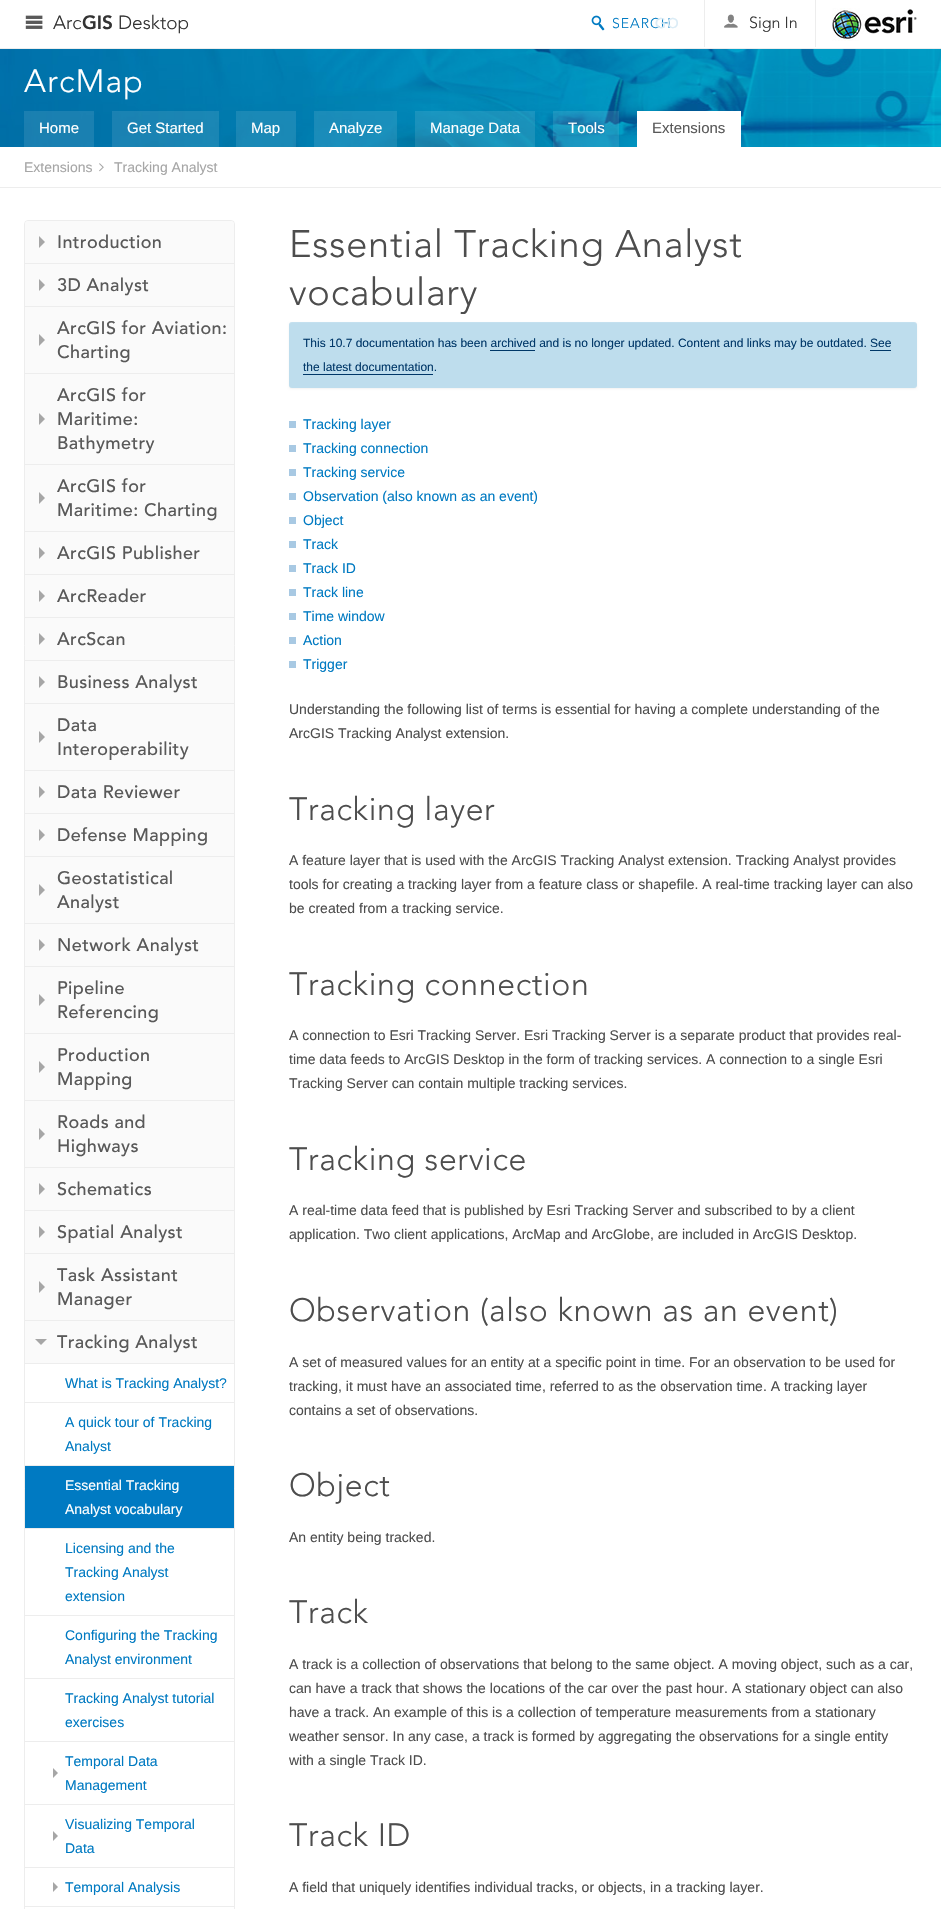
#include "include/core/SkBlurTypes.h"
#include "include/core/SkCanvas.h"
#include "include/core/SkData.h"
#include "include/core/SkFont.h"
#include "include/core/SkFontMgr.h"
#include "include/core/SkImage.h"
#include "include/core/SkMaskFilter.h"
#include "include/core/SkPaint.h"
#include "include/core/SkPathBuilder.h"
#include "include/core/SkTextBlob.h"
#include "include/effects/SkDashPathEffect.h"
#include "include/effects/SkGradientShader.h"
#include "include/utils/SkParsePath.h"

extern sk_sp<SkFontMgr> fontMgr;

void draw(SkCanvas* canvas) {
  SkPaint p;
  p.setAntiAlias(true);
  auto spacedText = [&](const char* s, float x, float y, const SkFont& font, const SkPaint& ink, float letter, float word) {
    std::vector<SkGlyphID> glyphs(font.countText(s, strlen(s), SkTextEncoding::kUTF8));
    std::vector<float> xs(glyphs.size());
    font.textToGlyphs(s, strlen(s), SkTextEncoding::kUTF8, glyphs);
    font.getXPos(glyphs, xs, x);
    float extra = 0;
    for (size_t i = 0; i < glyphs.size(); i++) {
      xs[i] += extra;
      extra += letter + word * (glyphs[i] == font.unicharToGlyph(' '));
    }
    canvas->drawTextBlob(SkTextBlob::MakeFromPosHGlyphs(glyphs, xs, y, font), 0, 0, ink);
  };
  canvas->clear(SK_ColorWHITE);
  p.setColor(SkColorSetRGB(237, 237, 237));
  canvas->drawRect(SkRect::MakeLTRB(0, 48, 941, 49), p);
  canvas->drawImageRect(SkImages::DeferredFromEncodedData(SkData::MakeFromFileName("images/1.png")), SkRect::MakeLTRB(25, 15, 43, 29), SkSamplingOptions());
  canvas->drawImageRect(SkImages::DeferredFromEncodedData(SkData::MakeFromFileName("images/2.png")), SkRect::MakeLTRB(591, 15, 605, 31), SkSamplingOptions());
  canvas->drawRect(SkRect::MakeLTRB(815, 0, 816, 47), p);
  canvas->drawRect(SkRect::MakeLTRB(704, 0, 705, 47), p);
  canvas->drawImageRect(SkImages::DeferredFromEncodedData(SkData::MakeFromFileName("images/3.png")), SkRect::MakeLTRB(724, 14, 738, 28), SkSamplingOptions());
  canvas->drawImageRect(SkImages::DeferredFromEncodedData(SkData::MakeFromFileName("images/4.png")), SkRect::MakeLTRB(832, 8, 917, 41), SkSamplingOptions());
  canvas->drawImageRect(SkImages::DeferredFromEncodedData(SkData::MakeFromFileName("images/5.png")), SkRect::MakeLTRB(0, 49, 941, 147), SkSamplingOptions());
  p.setColor(SkColorSetARGB(26, 255, 255, 255));
  canvas->drawRect(SkRect::MakeLTRB(24, 111, 94, 147), p);
  canvas->drawRect(SkRect::MakeLTRB(112, 111, 219, 147), p);
  canvas->drawRect(SkRect::MakeLTRB(236, 111, 296, 147), p);
  canvas->drawRect(SkRect::MakeLTRB(314, 111, 397, 147), p);
  canvas->drawRect(SkRect::MakeLTRB(415, 111, 535, 147), p);
  canvas->drawRect(SkRect::MakeLTRB(553, 111, 619, 147), p);
  p.setColor(SK_ColorWHITE);
  canvas->drawRect(SkRect::MakeLTRB(637, 111, 741, 147), p);
  p.setColor(SkColorSetRGB(237, 237, 237));
  canvas->drawRect(SkRect::MakeLTRB(0, 187, 941, 188), p);
  canvas->drawImageRect(SkImages::DeferredFromEncodedData(SkData::MakeFromFileName("images/6.png")), SkRect::MakeLTRB(99, 163, 104, 172), SkSamplingOptions());
  p.setStyle(SkPaint::kStroke_Style);
  p.setStrokeWidth(1);
  canvas->drawRoundRect(SkRect::MakeLTRB(24.5f, 220.5f, 234.5f, 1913.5f), 3.5f, 3.5f, p);
  p.setStyle(SkPaint::kFill_Style);
  p.setColor(SkColorSetRGB(250, 250, 250));
  canvas->drawPath(SkPathBuilder().moveTo(28, 221).lineTo(231, 221).cubicTo(232.5f, 221, 234, 222.5f, 234, 224).lineTo(234, 264).lineTo(25, 264).lineTo(25, 224).cubicTo(25, 222.5f, 26.5f, 221, 28, 221).close().detach(), p);
  p.setColor(SkColorSetRGB(237, 237, 237));
  canvas->drawRect(SkRect::MakeLTRB(25, 263, 234, 264), p);
  p.setColor(SkColorSetRGB(166, 166, 166));
  canvas->drawPath(SkPathBuilder().moveTo(39, 248).lineTo(39, 236).lineTo(45, 242).close().detach(), p);
  p.setColor(SkColorSetRGB(250, 250, 250));
  canvas->drawRect(SkRect::MakeLTRB(25, 264, 234, 306), p);
  p.setColor(SkColorSetRGB(237, 237, 237));
  canvas->drawRect(SkRect::MakeLTRB(25, 306, 234, 307), p);
  p.setColor(SkColorSetRGB(166, 166, 166));
  canvas->drawPath(SkPathBuilder().moveTo(39, 291).lineTo(39, 279).lineTo(45, 285).close().detach(), p);
  p.setColor(SkColorSetRGB(250, 250, 250));
  canvas->drawRect(SkRect::MakeLTRB(25, 307, 234, 373), p);
  p.setColor(SkColorSetRGB(237, 237, 237));
  canvas->drawRect(SkRect::MakeLTRB(25, 373, 234, 374), p);
  p.setColor(SkColorSetRGB(166, 166, 166));
  canvas->drawPath(SkPathBuilder().moveTo(39, 346).lineTo(39, 334).lineTo(45, 340).close().detach(), p);
  p.setColor(SkColorSetRGB(250, 250, 250));
  canvas->drawRect(SkRect::MakeLTRB(25, 374, 234, 464), p);
  p.setColor(SkColorSetRGB(237, 237, 237));
  canvas->drawRect(SkRect::MakeLTRB(25, 464, 234, 465), p);
  p.setColor(SkColorSetRGB(166, 166, 166));
  canvas->drawPath(SkPathBuilder().moveTo(39, 425).lineTo(39, 413).lineTo(45, 419).close().detach(), p);
  p.setColor(SkColorSetRGB(250, 250, 250));
  canvas->drawRect(SkRect::MakeLTRB(25, 465, 234, 531), p);
  p.setColor(SkColorSetRGB(237, 237, 237));
  canvas->drawRect(SkRect::MakeLTRB(25, 531, 234, 532), p);
  p.setColor(SkColorSetRGB(166, 166, 166));
  canvas->drawPath(SkPathBuilder().moveTo(39, 504).lineTo(39, 492).lineTo(45, 498).close().detach(), p);
  p.setColor(SkColorSetRGB(250, 250, 250));
  canvas->drawRect(SkRect::MakeLTRB(25, 532, 234, 574), p);
  p.setColor(SkColorSetRGB(237, 237, 237));
  canvas->drawRect(SkRect::MakeLTRB(25, 574, 234, 575), p);
  p.setColor(SkColorSetRGB(166, 166, 166));
  canvas->drawPath(SkPathBuilder().moveTo(39, 559).lineTo(39, 547).lineTo(45, 553).close().detach(), p);
  p.setColor(SkColorSetRGB(250, 250, 250));
  canvas->drawRect(SkRect::MakeLTRB(25, 575, 234, 617), p);
  p.setColor(SkColorSetRGB(237, 237, 237));
  canvas->drawRect(SkRect::MakeLTRB(25, 617, 234, 618), p);
  p.setColor(SkColorSetRGB(166, 166, 166));
  canvas->drawPath(SkPathBuilder().moveTo(39, 602).lineTo(39, 590).lineTo(45, 596).close().detach(), p);
  p.setColor(SkColorSetRGB(250, 250, 250));
  canvas->drawRect(SkRect::MakeLTRB(25, 618, 234, 660), p);
  p.setColor(SkColorSetRGB(237, 237, 237));
  canvas->drawRect(SkRect::MakeLTRB(25, 660, 234, 661), p);
  p.setColor(SkColorSetRGB(166, 166, 166));
  canvas->drawPath(SkPathBuilder().moveTo(39, 645).lineTo(39, 633).lineTo(45, 639).close().detach(), p);
  p.setColor(SkColorSetRGB(250, 250, 250));
  canvas->drawRect(SkRect::MakeLTRB(25, 661, 234, 703), p);
  p.setColor(SkColorSetRGB(237, 237, 237));
  canvas->drawRect(SkRect::MakeLTRB(25, 703, 234, 704), p);
  p.setColor(SkColorSetRGB(166, 166, 166));
  canvas->drawPath(SkPathBuilder().moveTo(39, 688).lineTo(39, 676).lineTo(45, 682).close().detach(), p);
  p.setColor(SkColorSetRGB(250, 250, 250));
  canvas->drawRect(SkRect::MakeLTRB(25, 704, 234, 770), p);
  p.setColor(SkColorSetRGB(237, 237, 237));
  canvas->drawRect(SkRect::MakeLTRB(25, 770, 234, 771), p);
  p.setColor(SkColorSetRGB(166, 166, 166));
  canvas->drawPath(SkPathBuilder().moveTo(39, 743).lineTo(39, 731).lineTo(45, 737).close().detach(), p);
  p.setColor(SkColorSetRGB(250, 250, 250));
  canvas->drawRect(SkRect::MakeLTRB(25, 771, 234, 813), p);
  p.setColor(SkColorSetRGB(237, 237, 237));
  canvas->drawRect(SkRect::MakeLTRB(25, 813, 234, 814), p);
  p.setColor(SkColorSetRGB(166, 166, 166));
  canvas->drawPath(SkPathBuilder().moveTo(39, 798).lineTo(39, 786).lineTo(45, 792).close().detach(), p);
  p.setColor(SkColorSetRGB(250, 250, 250));
  canvas->drawRect(SkRect::MakeLTRB(25, 814, 234, 856), p);
  p.setColor(SkColorSetRGB(237, 237, 237));
  canvas->drawRect(SkRect::MakeLTRB(25, 856, 234, 857), p);
  p.setColor(SkColorSetRGB(166, 166, 166));
  canvas->drawPath(SkPathBuilder().moveTo(39, 841).lineTo(39, 829).lineTo(45, 835).close().detach(), p);
  p.setColor(SkColorSetRGB(250, 250, 250));
  canvas->drawRect(SkRect::MakeLTRB(25, 857, 234, 923), p);
  p.setColor(SkColorSetRGB(237, 237, 237));
  canvas->drawRect(SkRect::MakeLTRB(25, 923, 234, 924), p);
  p.setColor(SkColorSetRGB(166, 166, 166));
  canvas->drawPath(SkPathBuilder().moveTo(39, 896).lineTo(39, 884).lineTo(45, 890).close().detach(), p);
  p.setColor(SkColorSetRGB(250, 250, 250));
  canvas->drawRect(SkRect::MakeLTRB(25, 924, 234, 966), p);
  p.setColor(SkColorSetRGB(237, 237, 237));
  canvas->drawRect(SkRect::MakeLTRB(25, 966, 234, 967), p);
  p.setColor(SkColorSetRGB(166, 166, 166));
  canvas->drawPath(SkPathBuilder().moveTo(39, 951).lineTo(39, 939).lineTo(45, 945).close().detach(), p);
  p.setColor(SkColorSetRGB(250, 250, 250));
  canvas->drawRect(SkRect::MakeLTRB(25, 967, 234, 1033), p);
  p.setColor(SkColorSetRGB(237, 237, 237));
  canvas->drawRect(SkRect::MakeLTRB(25, 1033, 234, 1034), p);
  p.setColor(SkColorSetRGB(166, 166, 166));
  canvas->drawPath(SkPathBuilder().moveTo(39, 1006).lineTo(39, 994).lineTo(45, 1000).close().detach(), p);
  p.setColor(SkColorSetRGB(250, 250, 250));
  canvas->drawRect(SkRect::MakeLTRB(25, 1034, 234, 1100), p);
  p.setColor(SkColorSetRGB(237, 237, 237));
  canvas->drawRect(SkRect::MakeLTRB(25, 1100, 234, 1101), p);
  p.setColor(SkColorSetRGB(166, 166, 166));
  canvas->drawPath(SkPathBuilder().moveTo(39, 1073).lineTo(39, 1061).lineTo(45, 1067).close().detach(), p);
  p.setColor(SkColorSetRGB(250, 250, 250));
  canvas->drawRect(SkRect::MakeLTRB(25, 1101, 234, 1167), p);
  p.setColor(SkColorSetRGB(237, 237, 237));
  canvas->drawRect(SkRect::MakeLTRB(25, 1167, 234, 1168), p);
  p.setColor(SkColorSetRGB(166, 166, 166));
  canvas->drawPath(SkPathBuilder().moveTo(39, 1140).lineTo(39, 1128).lineTo(45, 1134).close().detach(), p);
  p.setColor(SkColorSetRGB(250, 250, 250));
  canvas->drawRect(SkRect::MakeLTRB(25, 1168, 234, 1210), p);
  p.setColor(SkColorSetRGB(237, 237, 237));
  canvas->drawRect(SkRect::MakeLTRB(25, 1210, 234, 1211), p);
  p.setColor(SkColorSetRGB(166, 166, 166));
  canvas->drawPath(SkPathBuilder().moveTo(39, 1195).lineTo(39, 1183).lineTo(45, 1189).close().detach(), p);
  p.setColor(SkColorSetRGB(250, 250, 250));
  canvas->drawRect(SkRect::MakeLTRB(25, 1211, 234, 1253), p);
  p.setColor(SkColorSetRGB(237, 237, 237));
  canvas->drawRect(SkRect::MakeLTRB(25, 1253, 234, 1254), p);
  p.setColor(SkColorSetRGB(166, 166, 166));
  canvas->drawPath(SkPathBuilder().moveTo(39, 1238).lineTo(39, 1226).lineTo(45, 1232).close().detach(), p);
  p.setColor(SkColorSetRGB(250, 250, 250));
  canvas->drawRect(SkRect::MakeLTRB(25, 1254, 234, 1320), p);
  p.setColor(SkColorSetRGB(237, 237, 237));
  canvas->drawRect(SkRect::MakeLTRB(25, 1320, 234, 1321), p);
  p.setColor(SkColorSetRGB(166, 166, 166));
  canvas->drawPath(SkPathBuilder().moveTo(39, 1293).lineTo(39, 1281).lineTo(45, 1287).close().detach(), p);
  p.setColor(SkColorSetRGB(250, 250, 250));
  canvas->drawRect(SkRect::MakeLTRB(25, 1321, 234, 1363), p);
  p.setColor(SkColorSetRGB(237, 237, 237));
  canvas->drawRect(SkRect::MakeLTRB(25, 1363, 234, 1364), p);
  p.setColor(SkColorSetRGB(166, 166, 166));
  canvas->drawPath(SkPathBuilder().moveTo(35, 1339).lineTo(47, 1339).lineTo(41, 1345).close().detach(), p);
  p.setColor(SkColorSetRGB(237, 237, 237));
  canvas->drawRect(SkRect::MakeLTRB(25, 1402, 234, 1403), p);
  canvas->drawRect(SkRect::MakeLTRB(25, 1465, 234, 1466), p);
  p.setColor(SkColorSetRGB(0, 122, 194));
  canvas->drawRect(SkRect::MakeLTRB(25, 1466, 234, 1528), p);
  p.setColor(SkColorSetRGB(237, 237, 237));
  canvas->drawRect(SkRect::MakeLTRB(25, 1528, 234, 1529), p);
  canvas->drawRect(SkRect::MakeLTRB(25, 1615, 234, 1616), p);
  canvas->drawRect(SkRect::MakeLTRB(25, 1678, 234, 1679), p);
  canvas->drawRect(SkRect::MakeLTRB(25, 1741, 234, 1742), p);
  canvas->drawRect(SkRect::MakeLTRB(25, 1804, 234, 1805), p);
  p.setColor(SkColorSetRGB(166, 166, 166));
  canvas->drawPath(SkPathBuilder().moveTo(53, 1778).lineTo(53, 1768).lineTo(58, 1773).close().detach(), p);
  p.setColor(SkColorSetRGB(237, 237, 237));
  canvas->drawRect(SkRect::MakeLTRB(25, 1867, 234, 1868), p);
  p.setColor(SkColorSetRGB(166, 166, 166));
  canvas->drawPath(SkPathBuilder().moveTo(53, 1841).lineTo(53, 1831).lineTo(58, 1836).close().detach(), p);
  p.setColor(SkColorSetRGB(237, 237, 237));
  canvas->drawRect(SkRect::MakeLTRB(25, 1906, 234, 1907), p);
  p.setColor(SkColorSetRGB(166, 166, 166));
  canvas->drawPath(SkPathBuilder().moveTo(53, 1892).lineTo(53, 1882).lineTo(58, 1887).close().detach(), p);
  p.setColor(SkColorSetARGB(13, 0, 0, 0));
  p.setMaskFilter(SkMaskFilter::MakeBlur(kNormal_SkBlurStyle, 1));
  canvas->drawRoundRect(SkRect::MakeLTRB(289, 323, 917, 389), 3, 3, p);
  p.setMaskFilter(nullptr);
  p.setColor(SkColorSetRGB(190, 221, 237));
  canvas->drawRoundRect(SkRect::MakeLTRB(289, 322, 917, 388), 3, 3, p);
  p.setColor(SkColorSetARGB(26, 255, 255, 255));
  canvas->drawPath(SkPathBuilder().moveTo(292, 323).lineTo(914, 323).cubicTo(916, 323, 917, 324, 917, 326).lineTo(917, 325).cubicTo(917, 323, 916, 322, 914, 322).lineTo(292, 322).cubicTo(290, 322, 289, 323, 289, 325).lineTo(289, 326).cubicTo(289, 324, 290, 323, 292, 323).close().detach(), p);
  p.setColor(SkColorSetRGB(0, 55, 104));
  canvas->drawRect(SkRect::MakeLTRB(490, 350, 535, 351), p);
  canvas->drawRect(SkRect::MakeLTRB(870, 350, 891, 351), p);
  canvas->drawRect(SkRect::MakeLTRB(303, 374, 433, 375), p);
  p.setColor(SkColorSetRGB(168, 201, 227));
  canvas->drawRect(SkRect::MakeLTRB(289, 421, 296, 428), p);
  canvas->drawRect(SkRect::MakeLTRB(289, 445, 296, 452), p);
  canvas->drawRect(SkRect::MakeLTRB(289, 469, 296, 476), p);
  canvas->drawRect(SkRect::MakeLTRB(289, 493, 296, 500), p);
  canvas->drawRect(SkRect::MakeLTRB(289, 517, 296, 524), p);
  canvas->drawRect(SkRect::MakeLTRB(289, 541, 296, 548), p);
  canvas->drawRect(SkRect::MakeLTRB(289, 565, 296, 572), p);
  canvas->drawRect(SkRect::MakeLTRB(289, 589, 296, 596), p);
  canvas->drawRect(SkRect::MakeLTRB(289, 613, 296, 620), p);
  canvas->drawRect(SkRect::MakeLTRB(289, 637, 296, 644), p);
  canvas->drawRect(SkRect::MakeLTRB(289, 661, 296, 668), p);
  SkFont font1(fontMgr->matchFamilyStyle("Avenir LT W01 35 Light", SkFontStyle(300, SkFontStyle::kNormal_Width, SkFontStyle::kUpright_Slant)), 19);
  font1.setSubpixel(true);
  p.setColor(SkColorSetRGB(51, 51, 51));
  canvas->drawString("Arc", 53, 29, font1, p);
  SkFont font2(fontMgr->matchFamilyStyle("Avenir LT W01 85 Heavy", SkFontStyle(900, SkFontStyle::kNormal_Width, SkFontStyle::kUpright_Slant)), 19);
  font2.setSubpixel(true);
  canvas->drawString("GIS", 82, 29, font2, p);
  canvas->drawString("Desktop", 118, 29, font1, p);
  SkFont font3(fontMgr->matchFamilyStyle("Avenir LT W01 35 Light", SkFontStyle(300, SkFontStyle::kNormal_Width, SkFontStyle::kUpright_Slant)), 14);
  font3.setSubpixel(true);
  p.setColor(SkColorSetRGB(0, 122, 194));
  spacedText("SEARCH", 612, 28, font3, p, 1, 0);
  SkFont font4(fontMgr->matchFamilyStyle("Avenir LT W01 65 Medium", SkFontStyle(500, SkFontStyle::kNormal_Width, SkFontStyle::kUpright_Slant)), 14);
  font4.setSubpixel(true);
  p.setColor(SkColorSetRGB(219, 236, 246));
  spacedText("GO", 655, 28, font4, p, 1, 0);
  SkFont font5(fontMgr->matchFamilyStyle("Avenir LT W01 35 Light", SkFontStyle(300, SkFontStyle::kNormal_Width, SkFontStyle::kUpright_Slant)), 16);
  font5.setSubpixel(true);
  p.setColor(SkColorSetRGB(51, 51, 51));
  canvas->drawString("Sign In", 749, 28, font5, p);
  SkFont font6(fontMgr->matchFamilyStyle("Avenir LT W01 35 Light", SkFontStyle(300, SkFontStyle::kNormal_Width, SkFontStyle::kUpright_Slant)), 32);
  font6.setSubpixel(true);
  p.setColor(SK_ColorWHITE);
  spacedText("ArcMap", 24, 92, font6, p, 1.25f, 0);
  SkFont font7(fontMgr->matchFamilyStyle("Liberation Sans", SkFontStyle::Normal()), 15);
  font7.setSubpixel(true);
  canvas->drawString("Home", 39, 133, font7, p);
  canvas->drawString("Get Started", 127, 133, font7, p);
  canvas->drawString("Map", 251, 133, font7, p);
  canvas->drawString("Analyze", 329, 133, font7, p);
  canvas->drawString("Manage Data", 430, 133, font7, p);
  canvas->drawString("Tools", 568, 133, font7, p);
  p.setColor(SkColorSetRGB(89, 89, 89));
  canvas->drawString("Extensions", 652, 133, font7, p);
  SkFont font8(fontMgr->matchFamilyStyle("Liberation Sans", SkFontStyle::Normal()), 14);
  font8.setSubpixel(true);
  p.setColor(SkColorSetRGB(166, 166, 166));
  canvas->drawString("Extensions", 24, 172, font8, p);
  canvas->drawString("Tracking Analyst", 114, 172, font8, p);
  SkFont font9(fontMgr->matchFamilyStyle("Avenir LT W01 65 Medium", SkFontStyle(500, SkFontStyle::kNormal_Width, SkFontStyle::kUpright_Slant)), 18);
  font9.setSubpixel(true);
  p.setColor(SkColorSetRGB(89, 89, 89));
  spacedText("Introduction", 57, 248, font9, p, 0.4f, 0);
  spacedText("3D Analyst", 57, 291, font9, p, 0.4f, 0);
  spacedText("ArcGIS for Aviation:", 57, 334, font9, p, 0.4f, 0);
  spacedText("Charting", 57, 358, font9, p, 0.4f, 0);
  spacedText("ArcGIS for", 57, 401, font9, p, 0.4f, 0);
  spacedText("Maritime:", 57, 425, font9, p, 0.4f, 0);
  spacedText("Bathymetry", 57, 449, font9, p, 0.4f, 0);
  spacedText("ArcGIS for", 57, 492, font9, p, 0.4f, 0);
  spacedText("Maritime: Charting", 57, 516, font9, p, 0.4f, 0);
  spacedText("ArcGIS Publisher", 57, 559, font9, p, 0.4f, 0);
  spacedText("ArcReader", 57, 602, font9, p, 0.4f, 0);
  spacedText("ArcScan", 57, 645, font9, p, 0.4f, 0);
  spacedText("Business Analyst", 57, 688, font9, p, 0.4f, 0);
  spacedText("Data", 57, 731, font9, p, 0.4f, 0);
  spacedText("Interoperability", 57, 755, font9, p, 0.4f, 0);
  spacedText("Data Reviewer", 57, 798, font9, p, 0.4f, 0);
  spacedText("Defense Mapping", 57, 841, font9, p, 0.4f, 0);
  spacedText("Geostatistical", 57, 884, font9, p, 0.4f, 0);
  spacedText("Analyst", 57, 908, font9, p, 0.4f, 0);
  spacedText("Network Analyst", 57, 951, font9, p, 0.4f, 0);
  spacedText("Pipeline", 57, 994, font9, p, 0.4f, 0);
  spacedText("Referencing", 57, 1018, font9, p, 0.4f, 0);
  spacedText("Production", 57, 1061, font9, p, 0.4f, 0);
  spacedText("Mapping", 57, 1085, font9, p, 0.4f, 0);
  spacedText("Roads and", 57, 1128, font9, p, 0.4f, 0);
  spacedText("Highways", 57, 1152, font9, p, 0.4f, 0);
  spacedText("Schematics", 57, 1195, font9, p, 0.4f, 0);
  spacedText("Spatial Analyst", 57, 1238, font9, p, 0.4f, 0);
  spacedText("Task Assistant", 57, 1281, font9, p, 0.4f, 0);
  spacedText("Manager", 57, 1305, font9, p, 0.4f, 0);
  spacedText("Tracking Analyst", 57, 1348, font9, p, 0.4f, 0);
  p.setColor(SkColorSetRGB(0, 122, 194));
  canvas->drawString("What is Tracking Analyst?", 65, 1388, font8, p);
  canvas->drawString("A quick tour of Tracking", 65, 1427, font8, p);
  canvas->drawString("Analyst", 65, 1451, font8, p);
  p.setColor(SK_ColorWHITE);
  canvas->drawString("Essential Tracking", 65, 1490, font8, p);
  canvas->drawString("Analyst vocabulary", 65, 1514, font8, p);
  p.setColor(SkColorSetRGB(0, 122, 194));
  canvas->drawString("Licensing and the", 65, 1553, font8, p);
  canvas->drawString("Tracking Analyst", 65, 1577, font8, p);
  canvas->drawString("extension", 65, 1601, font8, p);
  canvas->drawString("Configuring the Tracking", 65, 1640, font8, p);
  canvas->drawString("Analyst environment", 65, 1664, font8, p);
  canvas->drawString("Tracking Analyst tutorial", 65, 1703, font8, p);
  canvas->drawString("exercises", 65, 1727, font8, p);
  canvas->drawString("Temporal Data", 65, 1766, font8, p);
  canvas->drawString("Management", 65, 1790, font8, p);
  canvas->drawString("Visualizing Temporal", 65, 1829, font8, p);
  canvas->drawString("Data", 65, 1853, font8, p);
  canvas->drawString("Temporal Analysis", 65, 1892, font8, p);
  SkFont font10(fontMgr->matchFamilyStyle("Avenir LT W01 35 Light", SkFontStyle(300, SkFontStyle::kNormal_Width, SkFontStyle::kUpright_Slant)), 38);
  font10.setSubpixel(true);
  p.setColor(SkColorSetRGB(77, 77, 77));
  spacedText("Essential Tracking Analyst", 289, 257, font10, p, 0.75f, 0);
  spacedText("vocabulary", 289, 305, font10, p, 0.75f, 0);
  SkFont font11(fontMgr->matchFamilyStyle("Liberation Sans", SkFontStyle::Normal()), 12);
  font11.setSubpixel(true);
  p.setColor(SkColorSetRGB(0, 55, 104));
  canvas->drawString("This 10.7 documentation has been archived and is no longer updated. Content and links may be outdated. See", 303, 347, font11, p);
  canvas->drawString("the latest documentation.", 303, 371, font11, p);
  p.setColor(SkColorSetRGB(0, 122, 194));
  canvas->drawString("Tracking layer", 303, 429, font8, p);
  canvas->drawString("Tracking connection", 303, 453, font8, p);
  canvas->drawString("Tracking service", 303, 477, font8, p);
  canvas->drawString("Observation (also known as an event)", 303, 501, font8, p);
  canvas->drawString("Object", 303, 525, font8, p);
  canvas->drawString("Track", 303, 549, font8, p);
  canvas->drawString("Track ID", 303, 573, font8, p);
  canvas->drawString("Track line", 303, 597, font8, p);
  canvas->drawString("Time window", 303, 621, font8, p);
  canvas->drawString("Action", 303, 645, font8, p);
  canvas->drawString("Trigger", 303, 669, font8, p);
  p.setColor(SkColorSetRGB(77, 77, 77));
  canvas->drawString("Understanding the following list of terms is essential for having a complete understanding of the", 289, 714, font8, p);
  canvas->drawString("ArcGIS Tracking Analyst extension.", 289, 738, font8, p);
  spacedText("Tracking layer", 289, 820, font6, p, 0.65f, 0);
  canvas->drawString("A feature layer that is used with the ArcGIS Tracking Analyst extension. Tracking Analyst provides", 289, 865, font8, p);
  canvas->drawString("tools for creating a tracking layer from a feature class or shapefile. A real-time tracking layer can also", 289, 889, font8, p);
  canvas->drawString("be created from a tracking service.", 289, 913, font8, p);
  spacedText("Tracking connection", 289, 995, font6, p, 0.65f, 0);
  canvas->drawString("A connection to Esri Tracking Server. Esri Tracking Server is a separate product that provides real-", 289, 1040, font8, p);
  canvas->drawString("time data feeds to ArcGIS Desktop in the form of tracking services. A connection to a single Esri", 289, 1064, font8, p);
  canvas->drawString("Tracking Server can contain multiple tracking services.", 289, 1088, font8, p);
  spacedText("Tracking service", 289, 1170, font6, p, 0.65f, 0);
  canvas->drawString("A real-time data feed that is published by Esri Tracking Server and subscribed to by a client", 289, 1215, font8, p);
  canvas->drawString("application. Two client applications, ArcMap and ArcGlobe, are included in ArcGIS Desktop.", 289, 1239, font8, p);
  spacedText("Observation (also known as an event)", 289, 1321, font6, p, 0.65f, 0);
  canvas->drawString("A set of measured values for an entity at a specific point in time. For an observation to be used for", 289, 1367, font8, p);
  canvas->drawString("tracking, it must have an associated time, referred to as the observation time. A tracking layer", 289, 1391, font8, p);
  canvas->drawString("contains a set of observations.", 289, 1415, font8, p);
  spacedText("Object", 289, 1496, font6, p, 0.65f, 0);
  canvas->drawString("An entity being tracked.", 289, 1542, font8, p);
  spacedText("Track", 289, 1623, font6, p, 0.65f, 0);
  canvas->drawString("A track is a collection of observations that belong to the same object. A moving object, such as a car,", 289, 1669, font8, p);
  canvas->drawString("can have a track that shows the locations of the car over the past hour. A stationary object can also", 289, 1693, font8, p);
  canvas->drawString("have a track. An example of this is a collection of temperature measurements from a stationary", 289, 1717, font8, p);
  canvas->drawString("weather sensor. In any case, a track is formed by aggregating the observations for a single entity", 289, 1741, font8, p);
  canvas->drawString("with a single Track ID.", 289, 1765, font8, p);
  spacedText("Track ID", 289, 1846, font6, p, 0.65f, 0);
  canvas->drawString("A field that uniquely identifies individual tracks, or objects, in a tracking layer.", 289, 1892, font8, p);
}
